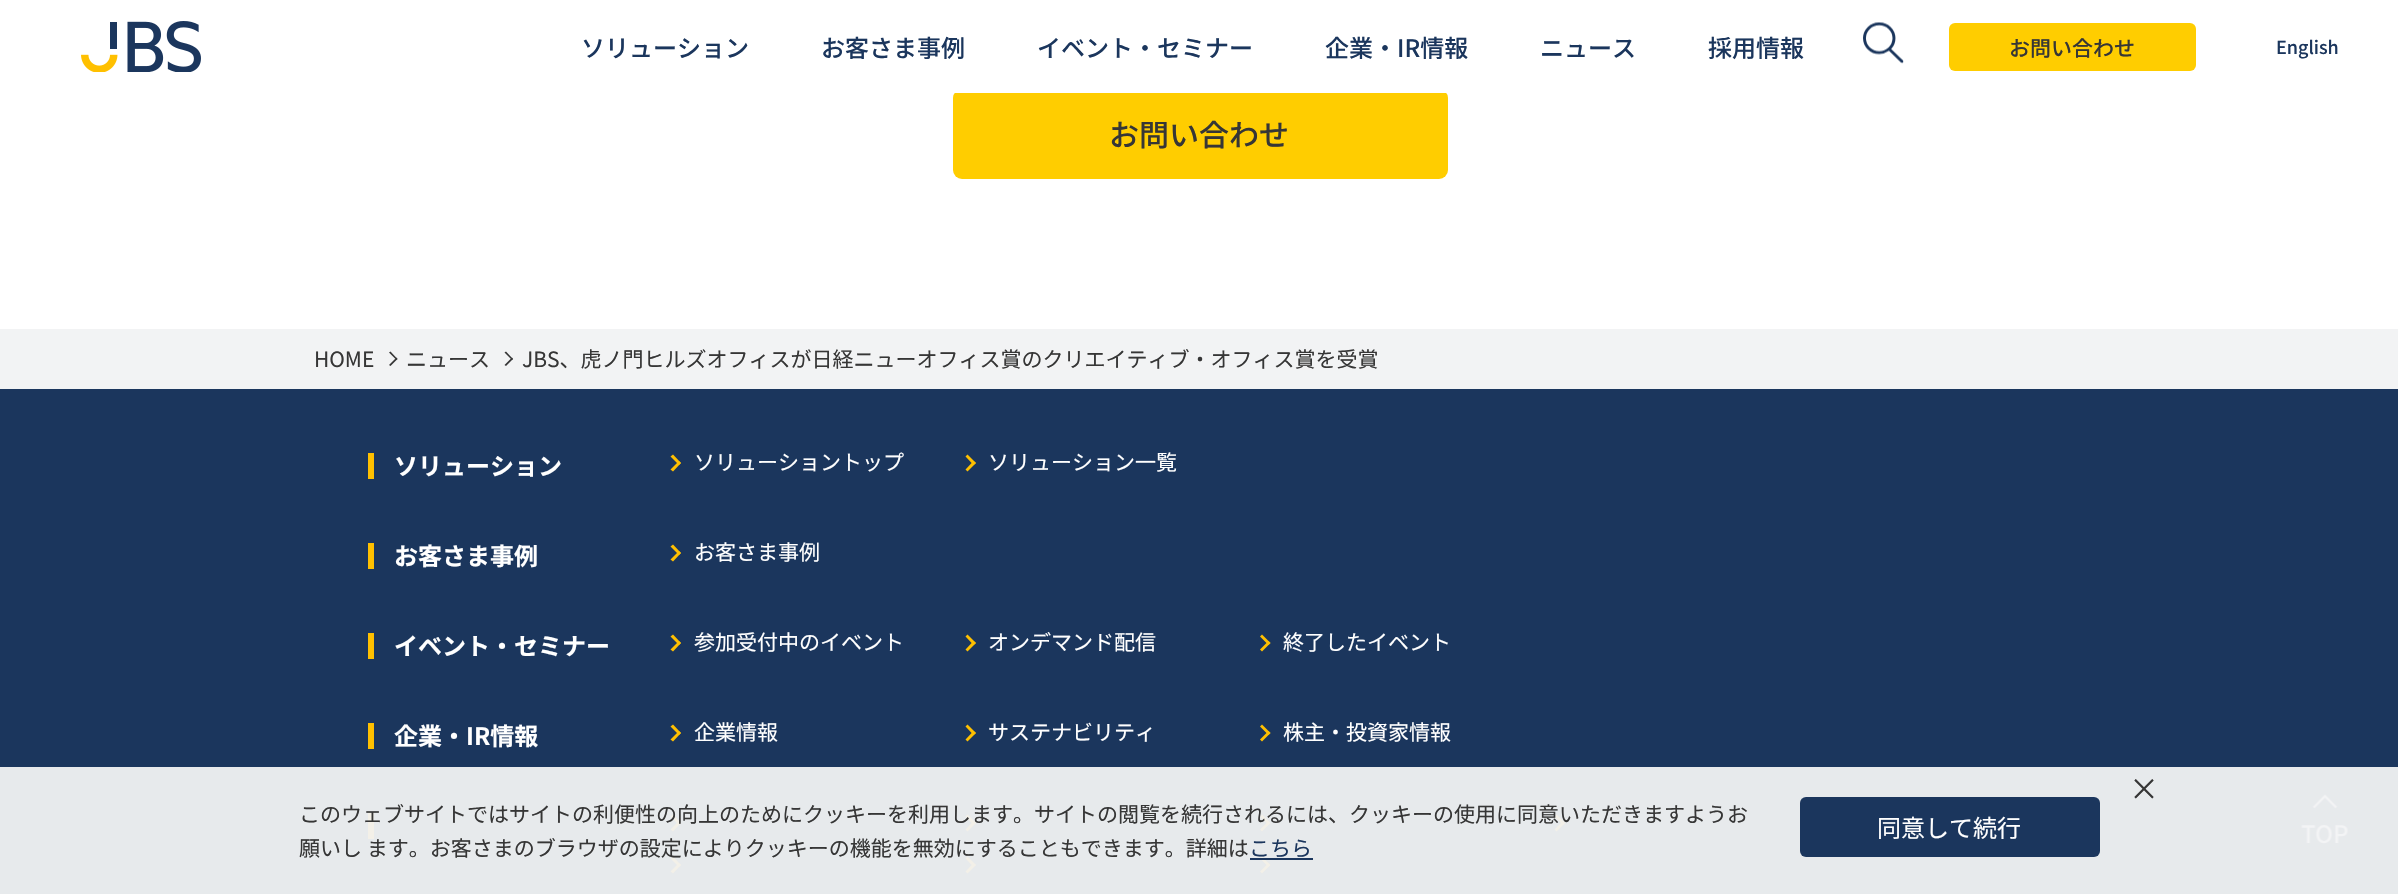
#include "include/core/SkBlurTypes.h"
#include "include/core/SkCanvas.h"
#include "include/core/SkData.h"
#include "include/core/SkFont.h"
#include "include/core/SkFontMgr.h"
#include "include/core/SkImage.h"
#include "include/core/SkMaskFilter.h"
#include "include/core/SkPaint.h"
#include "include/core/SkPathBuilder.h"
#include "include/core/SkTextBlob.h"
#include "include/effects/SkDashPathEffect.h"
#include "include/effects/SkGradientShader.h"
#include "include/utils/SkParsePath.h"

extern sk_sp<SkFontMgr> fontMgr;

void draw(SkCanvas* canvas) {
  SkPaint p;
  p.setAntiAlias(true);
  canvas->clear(SK_ColorWHITE);
  p.setColor(SkColorSetRGB(255, 205, 0));
  canvas->drawRoundRect(SkRect::MakeLTRB(953, 89, 1448, 179), 9, 9, p);
  p.setColor(SK_ColorWHITE);
  canvas->drawRect(SkRect::MakeLTRB(954, 89, 1447, 93), p);
  canvas->drawImageRect(SkImages::DeferredFromEncodedData(SkData::MakeFromFileName("images/1.png")), SkRect::MakeLTRB(81, 21, 201, 72), SkSamplingOptions());
  canvas->drawImageRect(SkImages::DeferredFromEncodedData(SkData::MakeFromFileName("images/2.png")), SkRect::MakeLTRB(1863, 22, 1904, 64), SkSamplingOptions());
  p.setColor(SkColorSetRGB(255, 205, 0));
  canvas->drawRoundRect(SkRect::MakeLTRB(1949, 23, 2196, 71), 6, 6, p);
  p.setColor(SkColorSetRGB(242, 243, 244));
  canvas->drawRect(SkRect::MakeLTRB(0, 329, 2398, 389), p);
  p.setColor(SkColorSetRGB(54, 54, 54));
  canvas->drawPath(SkPathBuilder().moveTo(390.5f, 351.5f).lineTo(397.5f, 359).lineTo(396.5f, 360).lineTo(389, 352.5f).close().detach(), p);
  canvas->drawPath(SkPathBuilder().moveTo(396.5f, 357.5f).lineTo(397.5f, 359).lineTo(390.5f, 366).lineTo(389, 365).close().detach(), p);
  canvas->drawPath(SkPathBuilder().moveTo(506, 351.5f).lineTo(513, 359).lineTo(512, 360).lineTo(504.5f, 352.5f).close().detach(), p);
  canvas->drawPath(SkPathBuilder().moveTo(512, 357.5f).lineTo(513, 359).lineTo(506, 366).lineTo(504.5f, 365).close().detach(), p);
  p.setColor(SkColorSetRGB(27, 54, 93));
  canvas->drawRect(SkRect::MakeLTRB(0, 389, 2398, 767), p);
  p.setColor(SkColorSetRGB(231, 234, 236));
  canvas->drawRect(SkRect::MakeLTRB(0, 767, 2398, 894), p);
  p.setColor(SkColorSetRGB(255, 192, 0));
  canvas->drawRect(SkRect::MakeLTRB(368, 453, 374, 479), p);
  canvas->drawPath(SkPathBuilder().moveTo(670.5f, 456.5f).lineTo(673, 454.5f).lineTo(681, 463).lineTo(679, 465).close().detach(), p);
  canvas->drawPath(SkPathBuilder().moveTo(670.5f, 469.5f).lineTo(679, 461).lineTo(681, 463).lineTo(673, 471.5f).close().detach(), p);
  canvas->drawPath(SkPathBuilder().moveTo(965.5f, 456.5f).lineTo(967.5f, 454.5f).lineTo(976, 463).lineTo(973.5f, 465).close().detach(), p);
  canvas->drawPath(SkPathBuilder().moveTo(965.5f, 469.5f).lineTo(973.5f, 461).lineTo(976, 463).lineTo(967.5f, 471.5f).close().detach(), p);
  canvas->drawRect(SkRect::MakeLTRB(368, 543, 374, 569), p);
  canvas->drawPath(SkPathBuilder().moveTo(670.5f, 546.5f).lineTo(673, 544.5f).lineTo(681, 553).lineTo(679, 555).close().detach(), p);
  canvas->drawPath(SkPathBuilder().moveTo(670.5f, 559.5f).lineTo(679, 551).lineTo(681, 553).lineTo(673, 561.5f).close().detach(), p);
  canvas->drawRect(SkRect::MakeLTRB(368, 633, 374, 659), p);
  canvas->drawPath(SkPathBuilder().moveTo(670.5f, 636.5f).lineTo(673, 634.5f).lineTo(681, 643).lineTo(679, 645).close().detach(), p);
  canvas->drawPath(SkPathBuilder().moveTo(670.5f, 649.5f).lineTo(679, 641).lineTo(681, 643).lineTo(673, 651.5f).close().detach(), p);
  canvas->drawPath(SkPathBuilder().moveTo(965.5f, 636.5f).lineTo(967.5f, 634.5f).lineTo(976, 643).lineTo(973.5f, 645).close().detach(), p);
  canvas->drawPath(SkPathBuilder().moveTo(965.5f, 649.5f).lineTo(973.5f, 641).lineTo(976, 643).lineTo(967.5f, 651.5f).close().detach(), p);
  canvas->drawPath(SkPathBuilder().moveTo(1260, 636.5f).lineTo(1262, 634.5f).lineTo(1270.5f, 643).lineTo(1268.5f, 645).close().detach(), p);
  canvas->drawPath(SkPathBuilder().moveTo(1260, 649.5f).lineTo(1268.5f, 641).lineTo(1270.5f, 643).lineTo(1262, 651.5f).close().detach(), p);
  canvas->drawRect(SkRect::MakeLTRB(368, 723, 374, 749), p);
  canvas->drawPath(SkPathBuilder().moveTo(670.5f, 726.5f).lineTo(673, 724.5f).lineTo(681, 733).lineTo(679, 735).close().detach(), p);
  canvas->drawPath(SkPathBuilder().moveTo(670.5f, 739.5f).lineTo(679, 731).lineTo(681, 733).lineTo(673, 741.5f).close().detach(), p);
  canvas->drawPath(SkPathBuilder().moveTo(965.5f, 726.5f).lineTo(967.5f, 724.5f).lineTo(976, 733).lineTo(973.5f, 735).close().detach(), p);
  canvas->drawPath(SkPathBuilder().moveTo(965.5f, 739.5f).lineTo(973.5f, 731).lineTo(976, 733).lineTo(967.5f, 741.5f).close().detach(), p);
  canvas->drawPath(SkPathBuilder().moveTo(1260, 726.5f).lineTo(1262, 724.5f).lineTo(1270.5f, 733).lineTo(1268.5f, 735).close().detach(), p);
  canvas->drawPath(SkPathBuilder().moveTo(1260, 739.5f).lineTo(1268.5f, 731).lineTo(1270.5f, 733).lineTo(1262, 741.5f).close().detach(), p);
  p.setColor(SkColorSetRGB(243, 240, 232));
  canvas->drawRect(SkRect::MakeLTRB(368, 813, 374, 839), p);
  canvas->drawPath(SkPathBuilder().moveTo(670.5f, 816.5f).lineTo(673, 814.5f).lineTo(681, 823).lineTo(679, 825).close().detach(), p);
  canvas->drawPath(SkPathBuilder().moveTo(670.5f, 829.5f).lineTo(679, 821).lineTo(681, 823).lineTo(673, 831.5f).close().detach(), p);
  canvas->drawPath(SkPathBuilder().moveTo(965.5f, 816.5f).lineTo(967.5f, 814.5f).lineTo(976, 823).lineTo(973.5f, 825).close().detach(), p);
  canvas->drawPath(SkPathBuilder().moveTo(965.5f, 829.5f).lineTo(973.5f, 821).lineTo(976, 823).lineTo(967.5f, 831.5f).close().detach(), p);
  canvas->drawPath(SkPathBuilder().moveTo(1260, 816.5f).lineTo(1262, 814.5f).lineTo(1270.5f, 823).lineTo(1268.5f, 825).close().detach(), p);
  canvas->drawPath(SkPathBuilder().moveTo(1260, 829.5f).lineTo(1268.5f, 821).lineTo(1270.5f, 823).lineTo(1262, 831.5f).close().detach(), p);
  canvas->drawPath(SkPathBuilder().moveTo(1554.5f, 816.5f).lineTo(1556.5f, 814.5f).lineTo(1565, 823).lineTo(1563, 825).close().detach(), p);
  canvas->drawPath(SkPathBuilder().moveTo(1554.5f, 829.5f).lineTo(1563, 821).lineTo(1565, 823).lineTo(1556.5f, 831.5f).close().detach(), p);
  canvas->drawPath(SkPathBuilder().moveTo(670.5f, 858.5f).lineTo(673, 856.5f).lineTo(681, 865).lineTo(679, 867).close().detach(), p);
  canvas->drawPath(SkPathBuilder().moveTo(670.5f, 871.5f).lineTo(679, 863).lineTo(681, 865).lineTo(673, 873.5f).close().detach(), p);
  canvas->drawPath(SkPathBuilder().moveTo(965.5f, 858.5f).lineTo(967.5f, 856.5f).lineTo(976, 865).lineTo(973.5f, 867).close().detach(), p);
  canvas->drawPath(SkPathBuilder().moveTo(965.5f, 871.5f).lineTo(973.5f, 863).lineTo(976, 865).lineTo(967.5f, 873.5f).close().detach(), p);
  canvas->drawPath(SkPathBuilder().moveTo(1260, 858.5f).lineTo(1262, 856.5f).lineTo(1270.5f, 865).lineTo(1268.5f, 867).close().detach(), p);
  canvas->drawPath(SkPathBuilder().moveTo(1260, 871.5f).lineTo(1268.5f, 863).lineTo(1270.5f, 865).lineTo(1262, 873.5f).close().detach(), p);
  p.setColor(SkColorSetRGB(27, 54, 93));
  canvas->drawRect(SkRect::MakeLTRB(1250, 858, 1313, 860), p);
  canvas->drawRoundRect(SkRect::MakeLTRB(1800, 797, 2100, 857), 6, 6, p);
  canvas->drawImageRect(SkImages::DeferredFromEncodedData(SkData::MakeFromFileName("images/3.png")), SkRect::MakeLTRB(2301, 794, 2348, 844), SkSamplingOptions());
  SkFont font1(fontMgr->matchFamilyStyle("Noto Sans JP", SkFontStyle(500, SkFontStyle::kNormal_Width, SkFontStyle::kUpright_Slant)), 24);
  font1.setSubpixel(true);
  canvas->drawString("ソリューション", 581, 57, font1, p);
  canvas->drawString("お客さま事例", 821, 57, font1, p);
  canvas->drawString("イベント・セミナー", 1037, 57, font1, p);
  canvas->drawString("企業・IR情報", 1325, 57, font1, p);
  canvas->drawString("ニュース", 1540, 57, font1, p);
  canvas->drawString("採用情報", 1708, 57, font1, p);
  SkFont font2(fontMgr->matchFamilyStyle("Noto Sans JP", SkFontStyle(500, SkFontStyle::kNormal_Width, SkFontStyle::kUpright_Slant)), 21);
  font2.setSubpixel(true);
  p.setColor(SkColorSetRGB(54, 54, 54));
  canvas->drawString("お問い合わせ", 2009, 56, font2, p);
  SkFont font3(fontMgr->matchFamilyStyle("Noto Sans JP", SkFontStyle(500, SkFontStyle::kNormal_Width, SkFontStyle::kUpright_Slant)), 18);
  font3.setSubpixel(true);
  p.setColor(SkColorSetRGB(27, 54, 93));
  canvas->drawString("English", 2276, 54, font3, p);
  SkFont font4(fontMgr->matchFamilyStyle("Noto Sans JP", SkFontStyle(500, SkFontStyle::kNormal_Width, SkFontStyle::kUpright_Slant)), 30);
  font4.setSubpixel(true);
  p.setColor(SkColorSetRGB(54, 54, 54));
  canvas->drawString("お問い合わせ", 1109, 146, font4, p);
  SkFont font5(fontMgr->matchFamilyStyle("Noto Sans JP", SkFontStyle::Normal()), 21);
  font5.setSubpixel(true);
  canvas->drawString("HOME", 314, 367, font5, p);
  canvas->drawString("ニュース", 406, 367, font5, p);
  canvas->drawString("JBS、虎ノ門ヒルズオフィスが日経ニューオフィス賞のクリエイティブ・オフィス賞を受賞", 522, 367, font5, p);
  SkFont font6(fontMgr->matchFamilyStyle("Noto Sans JP", SkFontStyle::Bold()), 24);
  font6.setSubpixel(true);
  p.setColor(SK_ColorWHITE);
  canvas->drawString("ソリューション", 394, 475, font6, p);
  canvas->drawString("ソリューショントップ", 694, 470, font5, p);
  canvas->drawString("ソリューション一覧", 988, 470, font5, p);
  canvas->drawString("お客さま事例", 394, 565, font6, p);
  canvas->drawString("お客さま事例", 694, 560, font5, p);
  canvas->drawString("イベント・セミナー", 394, 655, font6, p);
  canvas->drawString("参加受付中のイベント", 694, 650, font5, p);
  canvas->drawString("オンデマンド配信", 988, 650, font5, p);
  canvas->drawString("終了したイベント", 1283, 650, font5, p);
  canvas->drawString("企業・IR情報", 394, 745, font6, p);
  canvas->drawString("企業情報", 694, 740, font5, p);
  canvas->drawString("サステナビリティ", 988, 740, font5, p);
  canvas->drawString("株主・投資家情報", 1283, 740, font5, p);
  SkFont font7(fontMgr->matchFamilyStyle("Noto Sans JP", SkFontStyle::Normal()), 30);
  font7.setSubpixel(true);
  p.setColor(SkColorSetRGB(54, 54, 54));
  canvas->drawString("×", 2129, 800, font7, p);
  canvas->drawString("このウェブサイトではサイトの利便性の向上のためにクッキーを利用します。サイトの閲覧を続行されるには、クッキーの使用に同意いただきますようお", 299, 822, font5, p);
  canvas->drawString("願いし ます。お客さまのブラウザの設定によりクッキーの機能を無効にすることもできます。詳細は", 299, 856, font5, p);
  p.setColor(SkColorSetRGB(27, 54, 93));
  canvas->drawString("こちら", 1249, 856, font5, p);
  SkFont font8(fontMgr->matchFamilyStyle("Noto Sans JP", SkFontStyle::Normal()), 24);
  font8.setSubpixel(true);
  p.setColor(SK_ColorWHITE);
  canvas->drawString("同意して続行", 1877, 837, font8, p);
}
